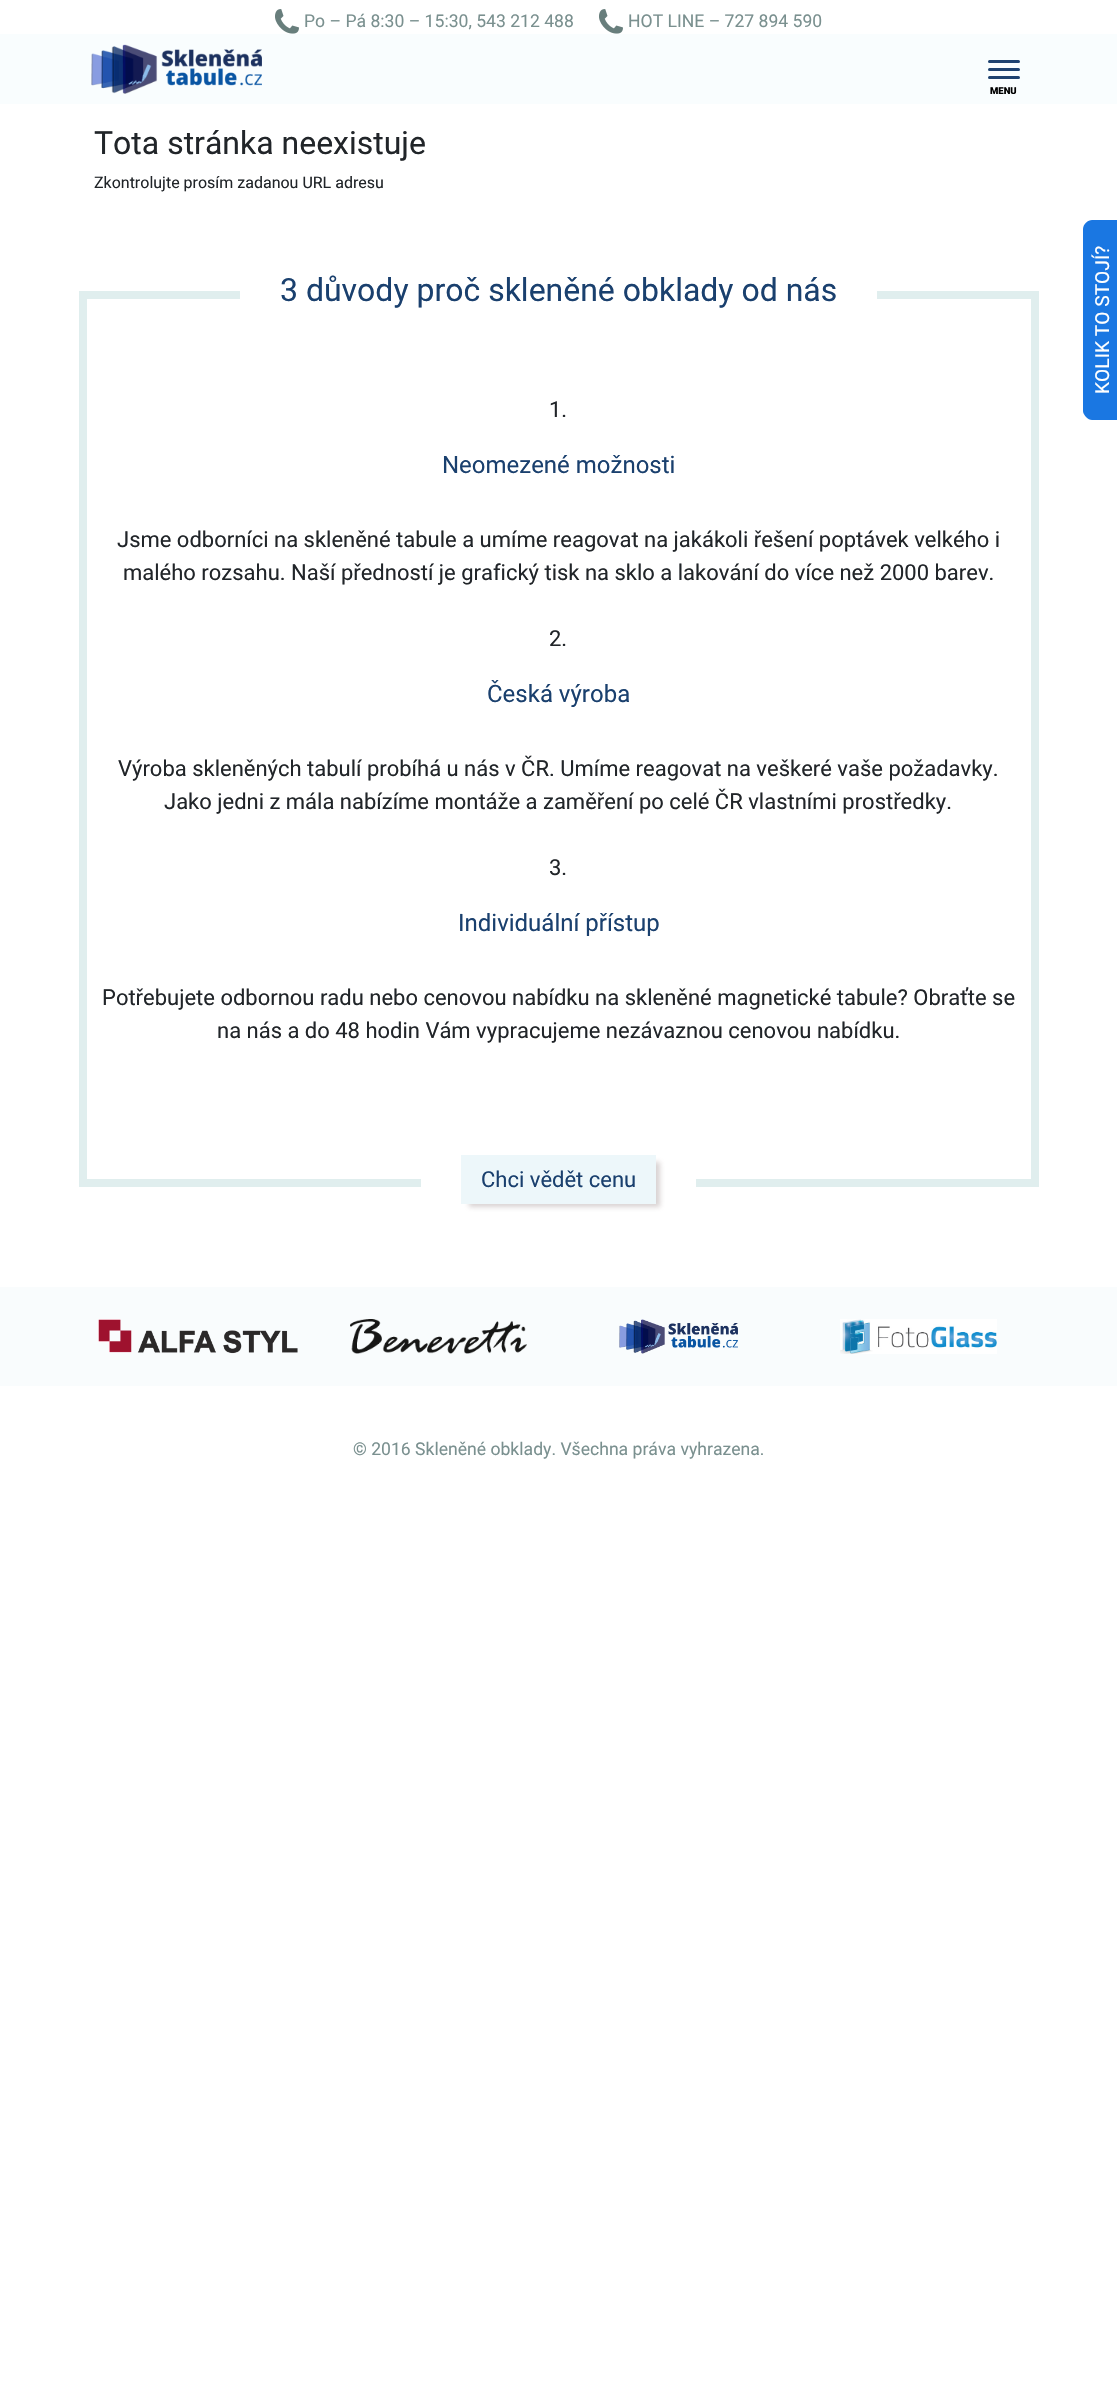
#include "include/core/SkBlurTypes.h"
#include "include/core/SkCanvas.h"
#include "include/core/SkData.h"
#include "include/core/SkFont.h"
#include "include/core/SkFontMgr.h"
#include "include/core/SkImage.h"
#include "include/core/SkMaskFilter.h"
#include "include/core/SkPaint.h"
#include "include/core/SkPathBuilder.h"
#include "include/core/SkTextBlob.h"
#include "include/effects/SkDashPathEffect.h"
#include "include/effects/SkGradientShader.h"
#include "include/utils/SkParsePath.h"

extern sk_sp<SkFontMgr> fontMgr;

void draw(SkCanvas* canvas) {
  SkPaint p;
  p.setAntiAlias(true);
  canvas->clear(SK_ColorWHITE);
  canvas->drawImageRect(SkImages::DeferredFromEncodedData(SkData::MakeFromFileName("images/1.png")), SkRect::MakeLTRB(275, 9, 299, 34), SkSamplingOptions());
  canvas->drawImageRect(SkImages::DeferredFromEncodedData(SkData::MakeFromFileName("images/1.png")), SkRect::MakeLTRB(599, 9, 623, 34), SkSamplingOptions());
  p.setColor(SkColorSetRGB(249, 253, 254));
  canvas->drawRect(SkRect::MakeLTRB(0, 34, 1117, 104), p);
  canvas->drawImageRect(SkImages::DeferredFromEncodedData(SkData::MakeFromFileName("images/2.png")), SkRect::MakeLTRB(91, 44, 262, 94), SkSamplingOptions());
  p.setColor(SkColorSetRGB(30, 66, 112));
  canvas->drawRoundRect(SkRect::MakeLTRB(988, 60, 1020, 63), 1.5f, 1.5f, p);
  canvas->drawRoundRect(SkRect::MakeLTRB(988, 68, 1020, 71), 1.5f, 1.5f, p);
  canvas->drawRoundRect(SkRect::MakeLTRB(988, 76, 1020, 79), 1.5f, 1.5f, p);
  p.setStyle(SkPaint::kStroke_Style);
  p.setStrokeWidth(8);
  p.setColor(SkColorSetRGB(224, 238, 238));
  canvas->drawRect(SkRect::MakeLTRB(83, 295, 1035, 1183), p);
  p.setStyle(SkPaint::kFill_Style);
  p.setColor(SK_ColorWHITE);
  canvas->drawRect(SkRect::MakeLTRB(240, 291, 877, 299), p);
  canvas->drawRect(SkRect::MakeLTRB(421, 1179, 696, 1187), p);
  p.setColor(SkColorSetARGB(84, 138, 117, 117));
  p.setMaskFilter(SkMaskFilter::MakeBlur(kNormal_SkBlurStyle, 2.5f));
  canvas->drawRect(SkRect::MakeLTRB(469, 1162, 660, 1207), p);
  p.setMaskFilter(nullptr);
  p.setColor(SkColorSetRGB(237, 247, 250));
  canvas->drawRect(SkRect::MakeLTRB(461, 1155, 656, 1204), p);
  p.setColor(SkColorSetRGB(26, 119, 226));
  canvas->drawPath(SkPathBuilder().moveTo(1083, 411).lineTo(1083, 229).cubicTo(1083, 224, 1088, 220, 1092, 220).lineTo(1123, 220).lineTo(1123, 420).lineTo(1092, 420).cubicTo(1088, 420, 1083, 415, 1083, 411).close().detach(), p);
  p.setColor(SkColorSetRGB(249, 252, 253));
  canvas->drawRect(SkRect::MakeLTRB(0, 1287, 1117, 1386), p);
  canvas->drawImageRect(SkImages::DeferredFromEncodedData(SkData::MakeFromFileName("images/3.png")), SkRect::MakeLTRB(98, 1319, 298, 1354), SkSamplingOptions());
  canvas->drawImageRect(SkImages::DeferredFromEncodedData(SkData::MakeFromFileName("images/4.png")), SkRect::MakeLTRB(350, 1319, 527, 1354), SkSamplingOptions());
  canvas->drawImageRect(SkImages::DeferredFromEncodedData(SkData::MakeFromFileName("images/5.png")), SkRect::MakeLTRB(619, 1319, 738, 1354), SkSamplingOptions());
  canvas->drawImageRect(SkImages::DeferredFromEncodedData(SkData::MakeFromFileName("images/6.png")), SkRect::MakeLTRB(840, 1319, 997, 1354), SkSamplingOptions());
  SkFont font1(fontMgr->matchFamilyStyle("Roboto", SkFontStyle::Normal()), 17.6f);
  font1.setSubpixel(true);
  p.setColor(SkColorSetRGB(122, 144, 143));
  canvas->drawString("Po – Pá 8:30 – 15:30, 543 212 488", 304, 27, font1, p);
  canvas->drawString("HOT LINE – 727 894 590", 628, 27, font1, p);
  SkFont font2(fontMgr->matchFamilyStyle("Roboto", SkFontStyle(900, SkFontStyle::kNormal_Width, SkFontStyle::kUpright_Slant)), 9.5f);
  font2.setSubpixel(true);
  p.setColor(SK_ColorBLACK);
  canvas->drawString("MENU", 990, 94, font2, p);
  SkFont font3(fontMgr->matchFamilyStyle("Roboto", SkFontStyle::Normal()), 32);
  font3.setSubpixel(true);
  p.setColor(SkColorSetRGB(33, 37, 41));
  canvas->drawString("Tota stránka neexistuje", 94, 154, font3, p);
  SkFont font4(fontMgr->matchFamilyStyle("Roboto", SkFontStyle::Normal()), 16);
  font4.setSubpixel(true);
  canvas->drawString("Zkontrolujte prosím zadanou URL adresu", 94, 188, font4, p);
  p.setColor(SkColorSetRGB(26, 64, 110));
  canvas->drawString("3 důvody proč skleněné obklady od nás", 280, 301, font3, p);
  SkFont font5(fontMgr->matchFamilyStyle("Roboto", SkFontStyle::Normal()), 22);
  font5.setSubpixel(true);
  p.setColor(SkColorSetRGB(33, 37, 41));
  canvas->drawString("1.", 549, 417, font5, p);
  SkFont font6(fontMgr->matchFamilyStyle("Roboto", SkFontStyle::Normal()), 24);
  font6.setSubpixel(true);
  p.setColor(SkColorSetRGB(26, 64, 110));
  canvas->drawString("Neomezené možnosti", 442, 473, font6, p);
  p.setColor(SkColorSetRGB(33, 37, 41));
  canvas->drawString("Jsme odborníci na skleněné tabule a umíme reagovat na jakákoli řešení poptávek velkého i", 117, 547, font5, p);
  canvas->drawString("malého rozsahu. Naší předností je grafický tisk na sklo a lakování do více než 2000 barev.", 123, 580, font5, p);
  canvas->drawString("2.", 549, 646, font5, p);
  p.setColor(SkColorSetRGB(26, 64, 110));
  canvas->drawString("Česká výroba", 487, 702, font6, p);
  p.setColor(SkColorSetRGB(33, 37, 41));
  canvas->drawString("Výroba skleněných tabulí probíhá u nás v ČR. Umíme reagovat na veškeré vaše požadavky.", 118, 776, font5, p);
  canvas->drawString("Jako jedni z mála nabízíme montáže a zaměření po celé ČR vlastními prostředky.", 164, 809, font5, p);
  canvas->drawString("3.", 549, 875, font5, p);
  p.setColor(SkColorSetRGB(26, 64, 110));
  canvas->drawString("Individuální přístup", 458, 931, font6, p);
  p.setColor(SkColorSetRGB(33, 37, 41));
  canvas->drawString("Potřebujete odbornou radu nebo cenovou nabídku na skleněné magnetické tabule? Obraťte se", 102, 1005, font5, p);
  canvas->drawString("na nás a do 48 hodin Vám vypracujeme nezávaznou cenovou nabídku.", 217, 1038, font5, p);
  p.setColor(SkColorSetRGB(26, 64, 110));
  canvas->drawString("Chci vědět cenu", 481, 1187, font5, p);
  SkFont font7(fontMgr->matchFamilyStyle("Roboto", SkFontStyle::Normal()), 19.25f);
  font7.setSubpixel(true);
  p.setColor(SK_ColorWHITE);
  canvas->save();
  canvas->rotate(-90, 1109, 394);
  canvas->drawString("KOLIK TO STOJÍ?", 1109, 394, font7, p);
  canvas->restore();
  p.setColor(SkColorSetRGB(122, 144, 143));
  canvas->drawString("© 2016 Skleněné obklady. Všechna práva vyhrazena.", 353, 1455, font1, p);
}
